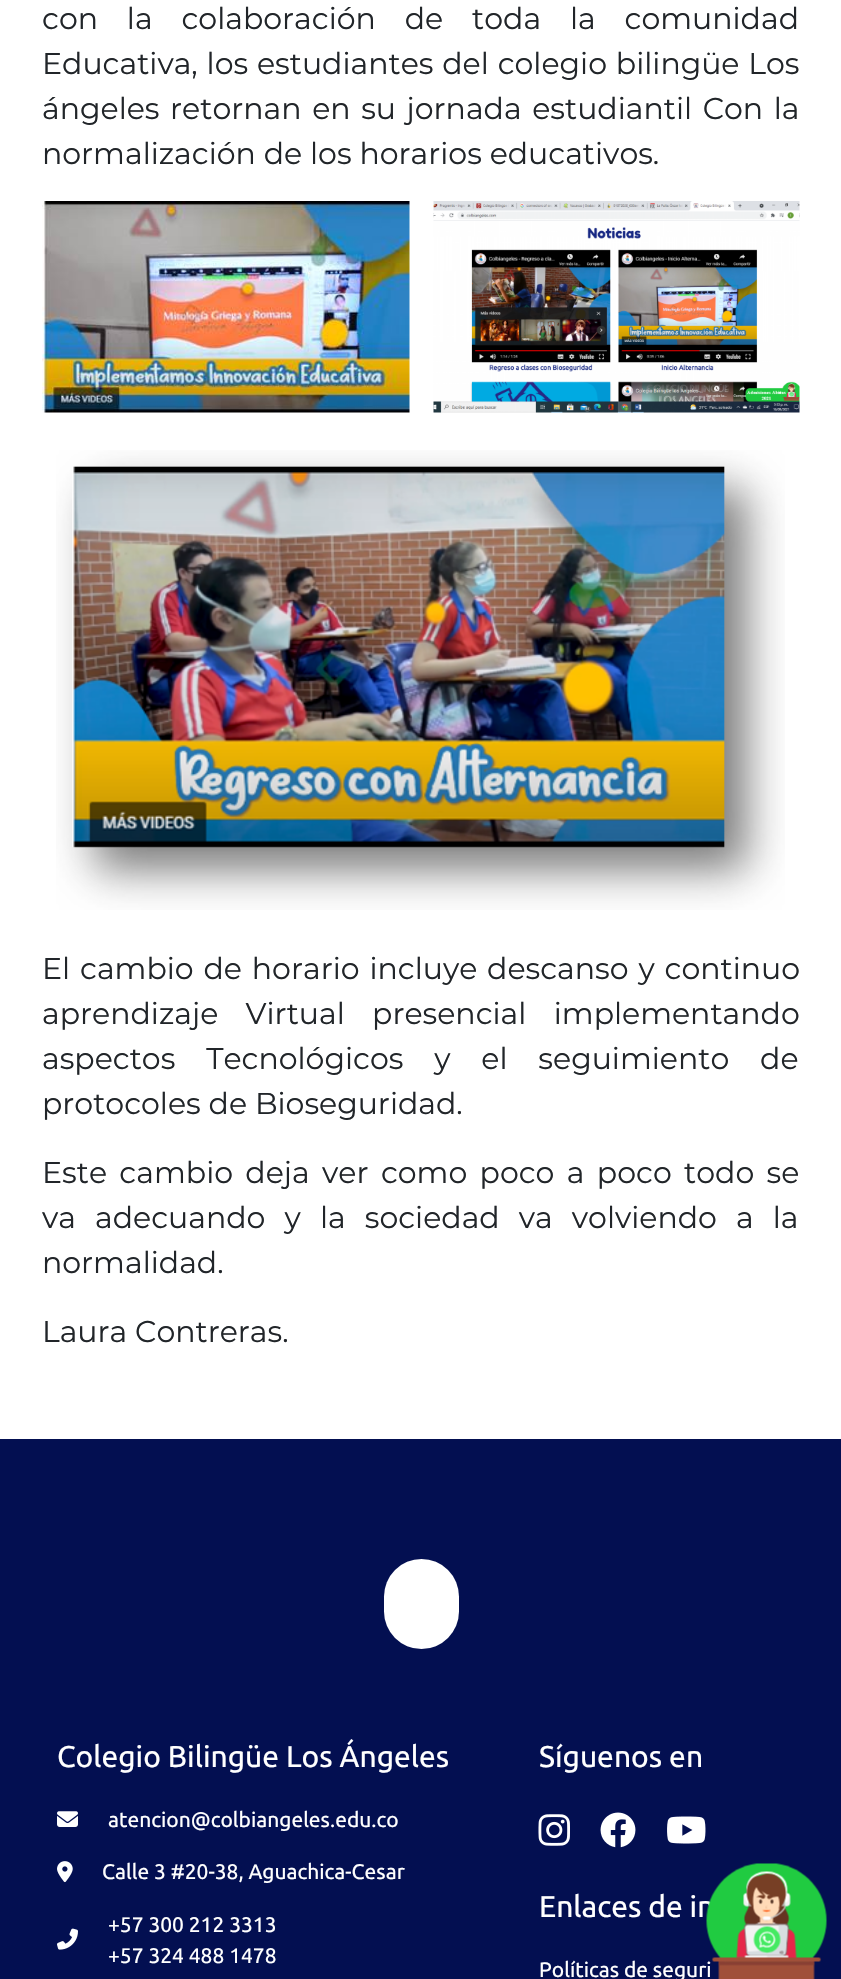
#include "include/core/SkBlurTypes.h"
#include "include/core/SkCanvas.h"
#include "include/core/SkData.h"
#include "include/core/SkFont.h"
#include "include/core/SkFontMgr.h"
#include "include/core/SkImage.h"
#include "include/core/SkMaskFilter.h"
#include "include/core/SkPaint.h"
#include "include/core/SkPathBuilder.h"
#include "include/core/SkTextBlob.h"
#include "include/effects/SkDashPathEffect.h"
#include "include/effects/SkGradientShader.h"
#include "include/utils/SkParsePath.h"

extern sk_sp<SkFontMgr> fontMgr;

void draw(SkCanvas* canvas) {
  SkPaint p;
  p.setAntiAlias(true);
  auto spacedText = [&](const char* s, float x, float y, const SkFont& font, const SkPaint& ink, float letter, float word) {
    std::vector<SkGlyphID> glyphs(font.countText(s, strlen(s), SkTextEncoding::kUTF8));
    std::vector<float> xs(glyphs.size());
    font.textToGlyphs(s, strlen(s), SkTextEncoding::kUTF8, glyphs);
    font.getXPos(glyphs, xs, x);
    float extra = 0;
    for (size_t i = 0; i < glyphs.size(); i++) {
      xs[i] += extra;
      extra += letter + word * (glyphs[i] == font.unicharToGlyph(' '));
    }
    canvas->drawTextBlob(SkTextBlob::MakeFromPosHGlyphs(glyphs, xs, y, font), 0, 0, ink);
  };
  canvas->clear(SK_ColorWHITE);
  canvas->drawImageRect(SkImages::DeferredFromEncodedData(SkData::MakeFromFileName("images/1.png")), SkRect::MakeLTRB(42, 201, 410, 413), SkSamplingOptions());
  canvas->drawImageRect(SkImages::DeferredFromEncodedData(SkData::MakeFromFileName("images/2.png")), SkRect::MakeLTRB(433, 201, 800, 413), SkSamplingOptions());
  canvas->drawImageRect(SkImages::DeferredFromEncodedData(SkData::MakeFromFileName("images/3.png")), SkRect::MakeLTRB(56, 450, 785, 910), SkSamplingOptions());
  p.setColor(SkColorSetRGB(3, 15, 81));
  canvas->drawRect(SkRect::MakeLTRB(0, 1439, 841, 1979), p);
  p.setColor(SK_ColorWHITE);
  canvas->drawRoundRect(SkRect::MakeLTRB(384, 1559, 459, 1649), 37.5f, 37.5f, p);
  canvas->drawImageRect(SkImages::DeferredFromEncodedData(SkData::MakeFromFileName("images/4.png")), SkRect::MakeLTRB(57, 1811, 78, 1827), SkSamplingOptions());
  canvas->drawImageRect(SkImages::DeferredFromEncodedData(SkData::MakeFromFileName("images/5.png")), SkRect::MakeLTRB(57, 1861, 73, 1883), SkSamplingOptions());
  canvas->drawImageRect(SkImages::DeferredFromEncodedData(SkData::MakeFromFileName("images/6.png")), SkRect::MakeLTRB(57, 1928, 78, 1950), SkSamplingOptions());
  canvas->drawImageRect(SkImages::DeferredFromEncodedData(SkData::MakeFromFileName("images/7.png")), SkRect::MakeLTRB(538, 1814, 570, 1846), SkSamplingOptions());
  canvas->drawImageRect(SkImages::DeferredFromEncodedData(SkData::MakeFromFileName("images/8.png")), SkRect::MakeLTRB(600, 1812, 636, 1848), SkSamplingOptions());
  canvas->drawImageRect(SkImages::DeferredFromEncodedData(SkData::MakeFromFileName("images/9.png")), SkRect::MakeLTRB(667, 1816, 706, 1844), SkSamplingOptions());
  SkFont font1(fontMgr->matchFamilyStyle("Montserrat", SkFontStyle(100, SkFontStyle::kNormal_Width, SkFontStyle::kUpright_Slant)), 30);
  font1.setSubpixel(true);
  p.setColor(SkColorSetRGB(33, 37, 41));
  spacedText("con la colaboración de toda la comunidad", 42, 29, font1, p, 0, 21);
  spacedText("Educativa, los estudiantes del colegio bilingüe Los", 42, 74, font1, p, 0, 1);
  spacedText("ángeles retornan en su jornada estudiantil Con la", 42, 119, font1, p, 0, 2.75f);
  canvas->drawString("normalización de los horarios educativos.", 42, 164, font1, p);
  spacedText("El cambio de horario incluye descanso y continuo", 42, 979, font1, p, 0, 2);
  spacedText("aprendizaje Virtual presencial implementando", 42, 1024, font1, p, 0, 19.5f);
  spacedText("aspectos Tecnológicos y el seguimiento de", 42, 1069, font1, p, 0, 23);
  canvas->drawString("protocoles de Bioseguridad.", 42, 1114, font1, p);
  spacedText("Este cambio deja ver como poco a poco todo se", 42, 1183, font1, p, 0, 4.5f);
  spacedText("va adecuando y la sociedad va volviendo a la", 42, 1228, font1, p, 0, 11.25f);
  canvas->drawString("normalidad.", 42, 1273, font1, p);
  canvas->drawString("Laura Contreras.", 42, 1342, font1, p);
  SkFont font2(fontMgr->matchFamilyStyle("Ubuntu", SkFontStyle::Normal()), 30);
  font2.setSubpixel(true);
  p.setColor(SK_ColorWHITE);
  canvas->drawString("Colegio Bilingüe Los Ángeles", 57, 1767, font2, p);
  SkFont font3(fontMgr->matchFamilyStyle("Ubuntu", SkFontStyle::Normal()), 21);
  font3.setSubpixel(true);
  canvas->drawString("atencion@colbiangeles.edu.co", 108, 1827, font3, p);
  canvas->drawString("Calle 3 #20-38, Aguachica-Cesar", 102, 1879, font3, p);
  canvas->drawString("+57 300 212 3313", 108, 1932, font3, p);
  canvas->drawString("+57 324 488 1478", 108, 1963, font3, p);
  canvas->drawString("Síguenos en", 539, 1767, font2, p);
  canvas->drawString("Enlaces de in", 539, 1917, font2, p);
  canvas->drawString("Políticas de seguri", 539, 1977, font3, p);
  canvas->drawImageRect(SkImages::DeferredFromEncodedData(SkData::MakeFromFileName("images/10.png")), SkRect::MakeLTRB(706, 1863, 827, 1979), SkSamplingOptions());
}
